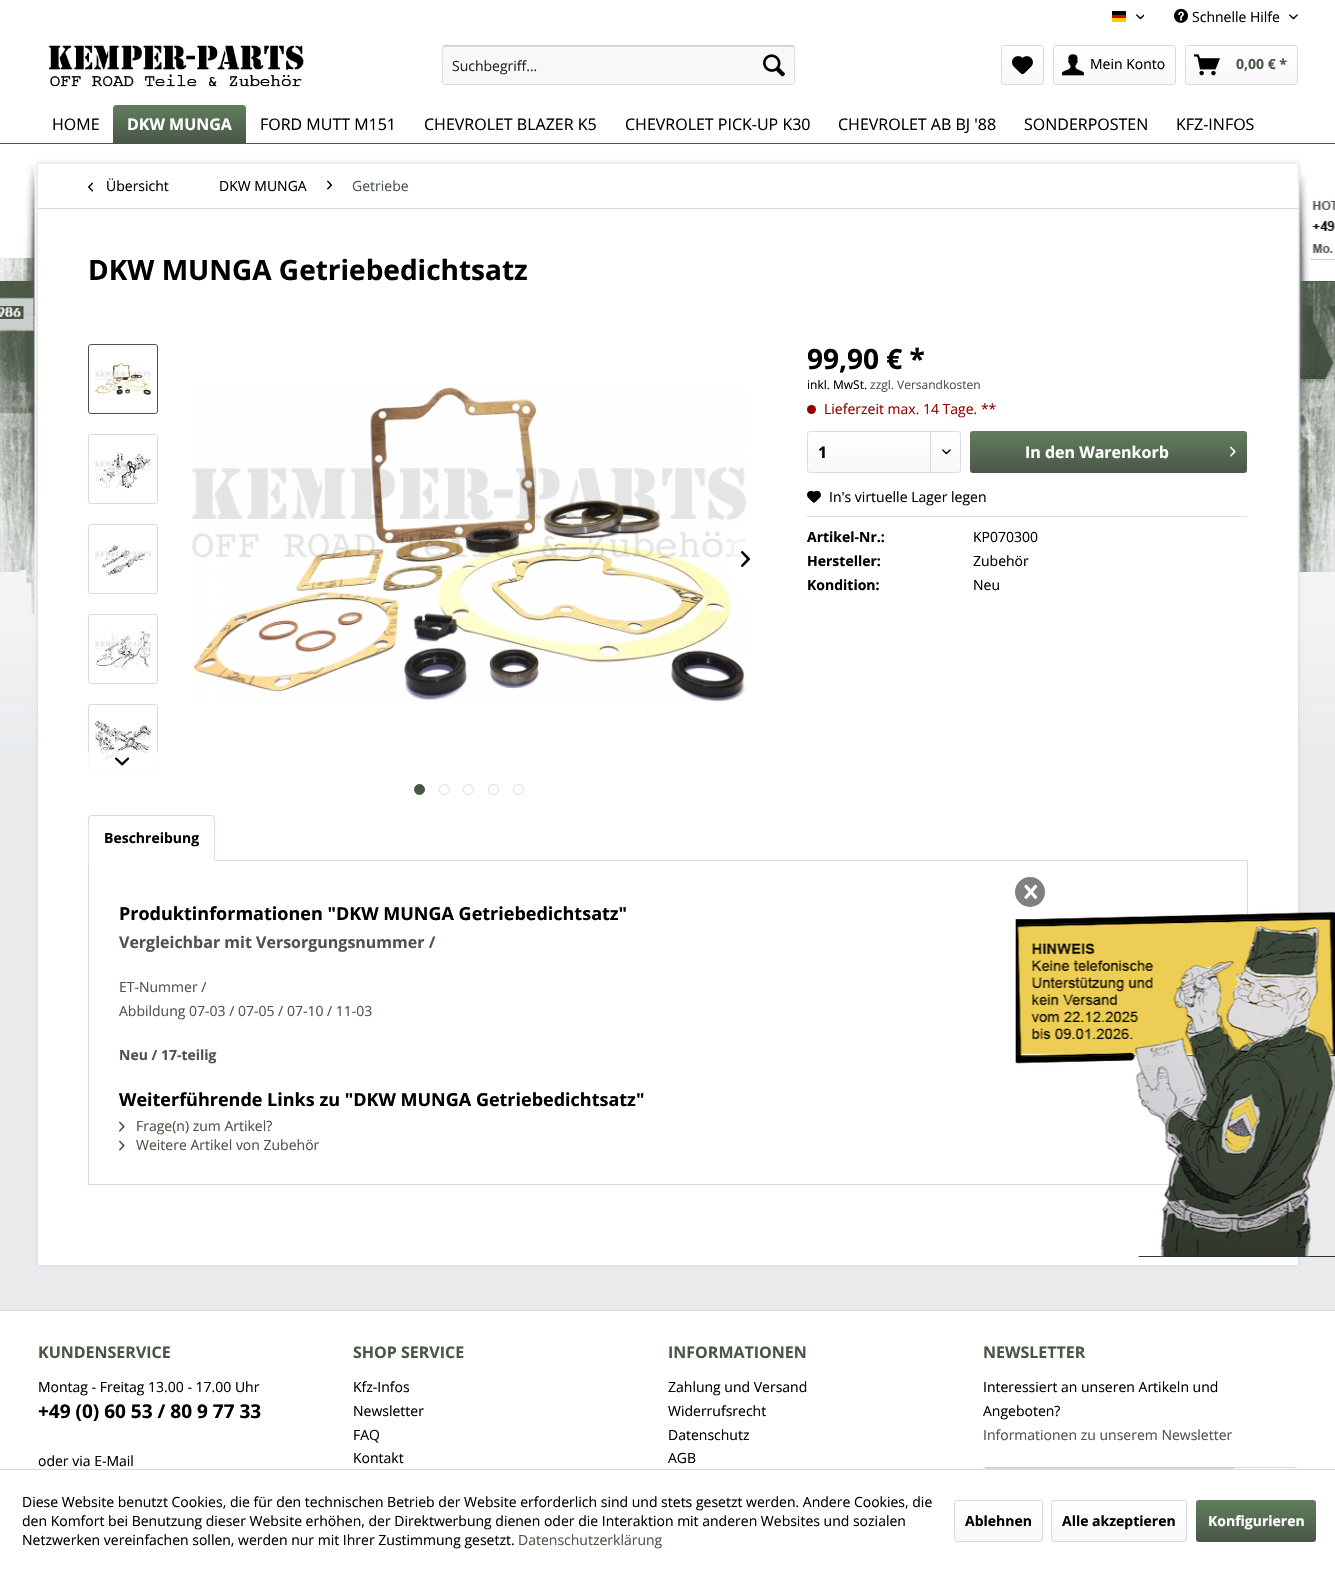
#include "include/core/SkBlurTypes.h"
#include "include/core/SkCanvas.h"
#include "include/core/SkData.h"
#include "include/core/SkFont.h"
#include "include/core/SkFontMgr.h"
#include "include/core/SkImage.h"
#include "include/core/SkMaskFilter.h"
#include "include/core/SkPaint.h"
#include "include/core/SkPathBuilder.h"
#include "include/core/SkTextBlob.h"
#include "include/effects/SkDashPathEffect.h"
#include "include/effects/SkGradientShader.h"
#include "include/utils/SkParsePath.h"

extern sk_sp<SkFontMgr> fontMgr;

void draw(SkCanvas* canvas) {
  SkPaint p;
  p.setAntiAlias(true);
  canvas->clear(SkColorSetRGB(233, 235, 237));
  canvas->drawImageRect(SkImages::DeferredFromEncodedData(SkData::MakeFromFileName("images/1.png")), SkRect::MakeLTRB(0, 144, 1335, 744), SkSamplingOptions());
  p.setColor(SK_ColorWHITE);
  canvas->drawRect(SkRect::MakeLTRB(0, 0, 1335, 143), p);
  p.setColor(SK_ColorBLACK);
  canvas->drawRect(SkRect::MakeLTRB(1112, 11, 1126, 15), p);
  p.setColor(SkColorSetRGB(221, 0, 0));
  canvas->drawRect(SkRect::MakeLTRB(1112, 15, 1126, 18), p);
  p.setColor(SkColorSetRGB(255, 206, 0));
  canvas->drawRect(SkRect::MakeLTRB(1112, 18, 1126, 22), p);
  canvas->drawImageRect(SkImages::DeferredFromEncodedData(SkData::MakeFromFileName("images/2.png")), SkRect::MakeLTRB(1136, 14, 1144, 20), SkSamplingOptions());
  canvas->drawImageRect(SkImages::DeferredFromEncodedData(SkData::MakeFromFileName("images/3.png")), SkRect::MakeLTRB(1174, 8, 1188, 23), SkSamplingOptions());
  canvas->drawImageRect(SkImages::DeferredFromEncodedData(SkData::MakeFromFileName("images/4.png")), SkRect::MakeLTRB(1289, 14, 1298, 20), SkSamplingOptions());
  canvas->drawImageRect(SkImages::DeferredFromEncodedData(SkData::MakeFromFileName("images/5.png")), SkRect::MakeLTRB(48, 45, 304, 87), SkSamplingOptions());
  p.setColor(SkColorSetRGB(248, 248, 250));
  canvas->drawRoundRect(SkRect::MakeLTRB(442, 45, 795, 85), 3, 3, p);
  p.setColor(SkColorSetRGB(218, 218, 229));
  canvas->drawPath(SkPathBuilder().moveTo(445, 47).lineTo(792, 47).cubicTo(793, 47, 794, 48, 794, 49).cubicTo(794, 48, 794, 46, 792, 46).lineTo(445, 46).cubicTo(443, 46, 443, 48, 443, 49).cubicTo(443, 48, 444, 47, 445, 47).close().detach(), p);
  p.setStyle(SkPaint::kStroke_Style);
  p.setStrokeWidth(1);
  p.setColor(SkColorSetRGB(203, 203, 219));
  canvas->drawPath(SkPathBuilder().moveTo(443, 46).lineTo(445, 45.5f).lineTo(792, 45.5f).lineTo(794, 46).detach(), p);
  p.setColor(SkColorSetRGB(218, 218, 229));
  canvas->drawPath(SkPathBuilder().moveTo(794, 46).cubicTo(795.5f, 48, 794.5f, 67, 794.5f, 70.5f).lineTo(794.5f, 76.5f).cubicTo(794.5f, 78, 796, 84.5f, 792, 84.5f).lineTo(445, 84.5f).cubicTo(441, 84.5f, 442.5f, 78, 442.5f, 76.5f).lineTo(442.5f, 70.5f).cubicTo(442.5f, 67, 441.5f, 48, 443, 46).detach(), p);
  canvas->drawImageRect(SkImages::DeferredFromEncodedData(SkData::MakeFromFileName("images/6.png")), SkRect::MakeLTRB(763, 54, 785, 77), SkSamplingOptions());
  p.setStyle(SkPaint::kFill_Style);
  {
    const SkColor colors[] = {SK_ColorWHITE, SkColorSetRGB(248, 248, 250)};
    const float stops[] = {0, 1};
    const SkPoint ends[] = {{1023, 46}, {1023, 84}};
    p.setShader(SkGradientShader::MakeLinear(ends, colors, stops, 2, SkTileMode::kClamp));
    p.setAlpha(255);
  }
  canvas->drawRoundRect(SkRect::MakeLTRB(1002, 46, 1043, 84), 2, 2, p);
  p.setStyle(SkPaint::kStroke_Style);
  p.setShader(nullptr);
  p.setColor(SkColorSetRGB(218, 218, 229));
  canvas->drawRoundRect(SkRect::MakeLTRB(1001.5f, 45.5f, 1043.5f, 84.5f), 2.5f, 2.5f, p);
  canvas->drawImageRect(SkImages::DeferredFromEncodedData(SkData::MakeFromFileName("images/7.png")), SkRect::MakeLTRB(1012, 56, 1033, 75), SkSamplingOptions());
  p.setStyle(SkPaint::kFill_Style);
  {
    const SkColor colors[] = {SK_ColorWHITE, SkColorSetRGB(248, 248, 250)};
    const float stops[] = {0, 1};
    const SkPoint ends[] = {{1115, 46}, {1115, 84}};
    p.setShader(SkGradientShader::MakeLinear(ends, colors, stops, 2, SkTileMode::kClamp));
    p.setAlpha(255);
  }
  canvas->drawRoundRect(SkRect::MakeLTRB(1054, 46, 1175, 84), 2, 2, p);
  p.setStyle(SkPaint::kStroke_Style);
  p.setShader(nullptr);
  p.setColor(SkColorSetRGB(218, 218, 229));
  canvas->drawRoundRect(SkRect::MakeLTRB(1053.5f, 45.5f, 1175.5f, 84.5f), 2.5f, 2.5f, p);
  canvas->drawImageRect(SkImages::DeferredFromEncodedData(SkData::MakeFromFileName("images/8.png")), SkRect::MakeLTRB(1062, 54, 1084, 76), SkSamplingOptions());
  p.setStyle(SkPaint::kFill_Style);
  {
    const SkColor colors[] = {SK_ColorWHITE, SkColorSetRGB(248, 248, 250)};
    const float stops[] = {0, 1};
    const SkPoint ends[] = {{1242, 46}, {1242, 84}};
    p.setShader(SkGradientShader::MakeLinear(ends, colors, stops, 2, SkTileMode::kClamp));
    p.setAlpha(255);
  }
  canvas->drawRoundRect(SkRect::MakeLTRB(1186, 46, 1297, 84), 2, 2, p);
  p.setStyle(SkPaint::kStroke_Style);
  p.setShader(nullptr);
  p.setColor(SkColorSetRGB(218, 218, 229));
  canvas->drawRoundRect(SkRect::MakeLTRB(1185.5f, 45.5f, 1297.5f, 84.5f), 2.5f, 2.5f, p);
  canvas->drawImageRect(SkImages::DeferredFromEncodedData(SkData::MakeFromFileName("images/9.png")), SkRect::MakeLTRB(1194, 54, 1220, 76), SkSamplingOptions());
  p.setStyle(SkPaint::kFill_Style);
  p.setColor(SkColorSetRGB(73, 87, 71));
  canvas->drawRect(SkRect::MakeLTRB(0, 143, 1335, 144), p);
  {
    const SkColor colors[] = {SkColorSetRGB(97, 126, 93), SkColorSetRGB(73, 87, 71)};
    const float stops[] = {0, 1};
    const SkPoint ends[] = {{180, 105}, {180, 143}};
    p.setShader(SkGradientShader::MakeLinear(ends, colors, stops, 2, SkTileMode::kClamp));
    p.setAlpha(255);
  }
  canvas->drawPath(SkPathBuilder().moveTo(116, 105).lineTo(243, 105).cubicTo(244.5f, 105, 246, 106.5f, 246, 108).lineTo(246, 143).lineTo(113, 143).lineTo(113, 108).cubicTo(113, 106.5f, 114.5f, 105, 116, 105).close().detach(), p);
  p.setShader(nullptr);
  p.setColor(SkColorSetRGB(218, 218, 229));
  p.setMaskFilter(SkMaskFilter::MakeBlur(kNormal_SkBlurStyle, 2));
  canvas->drawRect(SkRect::MakeLTRB(37, 163, 1299, 1266), p);
  p.setMaskFilter(nullptr);
  p.setColor(SK_ColorWHITE);
  canvas->drawRect(SkRect::MakeLTRB(38, 164, 1298, 1265), p);
  p.setColor(SkColorSetRGB(218, 218, 229));
  canvas->drawRect(SkRect::MakeLTRB(38, 208, 1298, 209), p);
  canvas->drawImageRect(SkImages::DeferredFromEncodedData(SkData::MakeFromFileName("images/10.png")), SkRect::MakeLTRB(88, 182, 93, 192), SkSamplingOptions());
  canvas->drawImageRect(SkImages::DeferredFromEncodedData(SkData::MakeFromFileName("images/11.png")), SkRect::MakeLTRB(327, 180, 332, 190), SkSamplingOptions());
  p.setStyle(SkPaint::kStroke_Style);
  p.setColor(SkColorSetRGB(73, 87, 71));
  canvas->drawRoundRect(SkRect::MakeLTRB(88.5f, 344.5f, 157.5f, 413.5f), 2.5f, 2.5f, p);
  canvas->drawImageRect(SkImages::DeferredFromEncodedData(SkData::MakeFromFileName("images/12.png")), SkRect::MakeLTRB(95, 363, 151, 395), SkSamplingOptions());
  p.setColor(SkColorSetRGB(218, 218, 229));
  canvas->drawRoundRect(SkRect::MakeLTRB(88.5f, 434.5f, 157.5f, 503.5f), 2.5f, 2.5f, p);
  canvas->drawImageRect(SkImages::DeferredFromEncodedData(SkData::MakeFromFileName("images/13.png")), SkRect::MakeLTRB(95, 452, 151, 490), SkSamplingOptions());
  canvas->drawRoundRect(SkRect::MakeLTRB(88.5f, 524.5f, 157.5f, 593.5f), 2.5f, 2.5f, p);
  canvas->drawImageRect(SkImages::DeferredFromEncodedData(SkData::MakeFromFileName("images/14.png")), SkRect::MakeLTRB(95, 545, 151, 576), SkSamplingOptions());
  canvas->drawRoundRect(SkRect::MakeLTRB(88.5f, 614.5f, 157.5f, 683.5f), 2.5f, 2.5f, p);
  canvas->drawImageRect(SkImages::DeferredFromEncodedData(SkData::MakeFromFileName("images/15.png")), SkRect::MakeLTRB(95, 631, 151, 670), SkSamplingOptions());
  canvas->drawRoundRect(SkRect::MakeLTRB(88.5f, 704.5f, 157.5f, 773.5f), 2.5f, 2.5f, p);
  canvas->drawImageRect(SkImages::DeferredFromEncodedData(SkData::MakeFromFileName("images/16.png")), SkRect::MakeLTRB(95, 721, 151, 760), SkSamplingOptions());
  p.setStyle(SkPaint::kFill_Style);
  p.setColor(SkColorSetARGB(217, 255, 255, 255));
  canvas->drawPath(SkPathBuilder().moveTo(91, 751).lineTo(155, 751).cubicTo(156, 751, 157, 752, 157, 753).lineTo(157, 773).lineTo(89, 773).lineTo(89, 753).cubicTo(89, 752, 90, 751, 91, 751).close().detach(), p);
  p.setStyle(SkPaint::kStroke_Style);
  canvas->drawPath(SkPathBuilder().moveTo(91, 750.5f).lineTo(155, 750.5f).cubicTo(156.5f, 750.5f, 157.5f, 751.5f, 157.5f, 753).lineTo(157.5f, 773.5f).lineTo(88.5f, 773.5f).lineTo(88.5f, 753).cubicTo(88.5f, 751.5f, 89.5f, 750.5f, 91, 750.5f).close().detach(), p);
  canvas->drawImageRect(SkImages::DeferredFromEncodedData(SkData::MakeFromFileName("images/17.png")), SkRect::MakeLTRB(115, 757, 130, 766), SkSamplingOptions());
  canvas->drawImageRect(SkImages::DeferredFromEncodedData(SkData::MakeFromFileName("images/18.png")), SkRect::MakeLTRB(192, 387, 747, 702), SkSamplingOptions());
  p.setStyle(SkPaint::kFill_Style);
  p.setColor(SkColorSetARGB(128, 255, 255, 255));
  canvas->drawPath(SkPathBuilder().moveTo(733, 525).lineTo(759, 525).lineTo(759, 593).lineTo(733, 593).cubicTo(732, 593, 731, 592, 731, 591).lineTo(731, 527).cubicTo(731, 526, 732, 525, 733, 525).close().detach(), p);
  p.setStyle(SkPaint::kStroke_Style);
  canvas->drawPath(SkPathBuilder().moveTo(733, 524.5f).lineTo(759.5f, 524.5f).lineTo(759.5f, 593.5f).lineTo(733, 593.5f).cubicTo(731.5f, 593.5f, 730.5f, 592.5f, 730.5f, 591).lineTo(730.5f, 527).cubicTo(730.5f, 525.5f, 731.5f, 524.5f, 733, 524.5f).close().detach(), p);
  canvas->drawImageRect(SkImages::DeferredFromEncodedData(SkData::MakeFromFileName("images/19.png")), SkRect::MakeLTRB(741, 551, 750, 567), SkSamplingOptions());
  p.setStyle(SkPaint::kFill_Style);
  p.setColor(SkColorSetRGB(73, 87, 71));
  canvas->drawCircle(419.5f, 789.5f, 5, p);
  p.setStyle(SkPaint::kStroke_Style);
  canvas->drawCircle(419.5f, 789.5f, 5, p);
  p.setColor(SkColorSetRGB(218, 218, 229));
  canvas->drawCircle(444.5f, 789.5f, 5, p);
  canvas->drawCircle(468.5f, 789.5f, 5, p);
  canvas->drawCircle(493.5f, 789.5f, 5, p);
  canvas->drawCircle(518.5f, 789.5f, 5, p);
  p.setStyle(SkPaint::kFill_Style);
  p.setColor(SkColorSetRGB(153, 0, 0));
  canvas->drawCircle(811.5f, 409.5f, 4.5f, p);
  {
    const SkColor colors[] = {SK_ColorWHITE, SkColorSetRGB(248, 248, 250)};
    const float stops[] = {0, 1};
    const SkPoint ends[] = {{884, 432}, {884, 472}};
    p.setShader(SkGradientShader::MakeLinear(ends, colors, stops, 2, SkTileMode::kClamp));
    p.setAlpha(255);
  }
  canvas->drawRoundRect(SkRect::MakeLTRB(808, 432, 960, 472), 2, 2, p);
  p.setStyle(SkPaint::kStroke_Style);
  p.setShader(nullptr);
  p.setColor(SkColorSetRGB(218, 218, 229));
  canvas->drawRoundRect(SkRect::MakeLTRB(807.5f, 431.5f, 960.5f, 472.5f), 2.5f, 2.5f, p);
  p.setStyle(SkPaint::kFill_Style);
  canvas->drawRect(SkRect::MakeLTRB(930, 432, 931, 472), p);
  canvas->drawImageRect(SkImages::DeferredFromEncodedData(SkData::MakeFromFileName("images/20.png")), SkRect::MakeLTRB(942, 449, 951, 455), SkSamplingOptions());
  {
    const SkColor colors[] = {SkColorSetRGB(97, 126, 93), SkColorSetRGB(73, 87, 71)};
    const float stops[] = {0, 1};
    const SkPoint ends[] = {{1109, 431}, {1109, 473}};
    p.setShader(SkGradientShader::MakeLinear(ends, colors, stops, 2, SkTileMode::kClamp));
    p.setAlpha(255);
  }
  canvas->drawRoundRect(SkRect::MakeLTRB(970, 431, 1247, 473), 3, 3, p);
  canvas->drawImageRect(SkImages::DeferredFromEncodedData(SkData::MakeFromFileName("images/21.png")), SkRect::MakeLTRB(1230, 446, 1236, 457), SkSamplingOptions());
  p.setShader(nullptr);
  p.setColor(SkColorSetRGB(218, 218, 229));
  canvas->drawRect(SkRect::MakeLTRB(807, 516, 1247, 517), p);
  canvas->drawImageRect(SkImages::DeferredFromEncodedData(SkData::MakeFromFileName("images/22.png")), SkRect::MakeLTRB(807, 490, 821, 503), SkSamplingOptions());
  p.setStyle(SkPaint::kStroke_Style);
  canvas->drawRect(SkRect::MakeLTRB(88.5f, 860.5f, 1247.5f, 1184.5f), p);
  p.setStyle(SkPaint::kFill_Style);
  p.setColor(SK_ColorWHITE);
  canvas->drawPath(SkPathBuilder().moveTo(91, 815).lineTo(212, 815).cubicTo(213.5f, 815, 215, 816.5f, 215, 818).lineTo(215, 861).lineTo(88, 861).lineTo(88, 818).cubicTo(88, 816.5f, 89.5f, 815, 91, 815).close().detach(), p);
  p.setColor(SkColorSetRGB(218, 218, 229));
  canvas->drawPath(SkPathBuilder().moveTo(91, 815).lineTo(89, 816).lineTo(90, 817).lineTo(91, 816).lineTo(212, 816).lineTo(213, 817).lineTo(214, 816).lineTo(212, 815).close().detach(), p);
  canvas->drawPath(SkPathBuilder().moveTo(215, 861).cubicTo(215, 856, 216, 818, 214, 816).lineTo(213, 817).cubicTo(215, 818, 214, 855, 214, 860).close().detach(), p);
  p.setColor(SK_ColorWHITE);
  canvas->drawPath(SkPathBuilder().moveTo(215, 861).lineTo(214, 860).lineTo(89, 860).lineTo(88, 861).close().detach(), p);
  p.setColor(SkColorSetRGB(218, 218, 229));
  canvas->drawPath(SkPathBuilder().moveTo(88, 861).lineTo(89, 860).cubicTo(89, 855, 88, 818, 90, 817).lineTo(89, 816).lineTo(88, 818).close().detach(), p);
  canvas->drawImageRect(SkImages::DeferredFromEncodedData(SkData::MakeFromFileName("images/23.png")), SkRect::MakeLTRB(119, 1121, 125, 1132), SkSamplingOptions());
  canvas->drawImageRect(SkImages::DeferredFromEncodedData(SkData::MakeFromFileName("images/23.png")), SkRect::MakeLTRB(119, 1140, 125, 1151), SkSamplingOptions());
  p.setColor(SK_ColorWHITE);
  canvas->drawRect(SkRect::MakeLTRB(0, 1311, 1335, 1469), p);
  p.setColor(SkColorSetRGB(218, 218, 229));
  canvas->drawRect(SkRect::MakeLTRB(0, 1310, 1335, 1311), p);
  canvas->drawPath(SkPathBuilder().moveTo(986, 1469).lineTo(1234, 1469).lineTo(1234, 1468).lineTo(986, 1468).cubicTo(984, 1468, 984, 1470, 984, 1471).cubicTo(984, 1470, 985, 1469, 986, 1469).close().detach(), p);
  p.setColor(SkColorSetRGB(203, 203, 219));
  canvas->drawPath(SkPathBuilder().moveTo(986, 1467).lineTo(984, 1468).lineTo(985, 1469).lineTo(985, 1468).lineTo(1234, 1468).lineTo(1235, 1467).close().detach(), p);
  p.setColor(SkColorSetRGB(218, 218, 229));
  canvas->drawPath(SkPathBuilder().moveTo(983, 1470).lineTo(983, 1504).cubicTo(983, 1505, 983, 1506, 984, 1506).lineTo(984.5f, 1505.5f).lineTo(984, 1504).lineTo(984, 1470).lineTo(984.5f, 1468.5f).lineTo(984, 1468).cubicTo(983, 1468, 983, 1469, 983, 1470).close().detach(), p);
  {
    const SkColor colors[] = {SK_ColorWHITE, SkColorSetRGB(248, 248, 250)};
    const float stops[] = {0, 1};
    const SkPoint ends[] = {{1266, 1468}, {1266, 1506}};
    p.setShader(SkGradientShader::MakeLinear(ends, colors, stops, 2, SkTileMode::kClamp));
    p.setAlpha(255);
  }
  canvas->drawPath(SkPathBuilder().moveTo(1235, 1468).lineTo(1294, 1468).cubicTo(1295, 1468, 1296, 1469, 1296, 1470).lineTo(1296, 1504).cubicTo(1296, 1505, 1295, 1506, 1294, 1506).lineTo(1235, 1506).close().detach(), p);
  p.setStyle(SkPaint::kStroke_Style);
  p.setShader(nullptr);
  p.setColor(SkColorSetRGB(218, 218, 229));
  canvas->drawPath(SkPathBuilder().moveTo(1234.5f, 1467.5f).lineTo(1294, 1467.5f).cubicTo(1295.5f, 1467.5f, 1296.5f, 1468.5f, 1296.5f, 1470).lineTo(1296.5f, 1504).cubicTo(1296.5f, 1505.5f, 1295.5f, 1506.5f, 1294, 1506.5f).lineTo(1234.5f, 1506.5f).close().detach(), p);
  p.setStyle(SkPaint::kFill_Style);
  p.setColor(SkColorSetRGB(128, 128, 128));
  canvas->drawCircle(1030, 892, 15, p);
  canvas->drawImageRect(SkImages::DeferredFromEncodedData(SkData::MakeFromFileName("images/24.png")), SkRect::MakeLTRB(1024, 884, 1038, 899), SkSamplingOptions());
  canvas->drawImageRect(SkImages::DeferredFromEncodedData(SkData::MakeFromFileName("images/25.png")), SkRect::MakeLTRB(1015, 911, 1335, 1257), SkSamplingOptions());
  p.setColor(SK_ColorWHITE);
  canvas->drawRect(SkRect::MakeLTRB(0, 1470, 1335, 1571), p);
  p.setColor(SkColorSetRGB(218, 218, 229));
  canvas->drawRect(SkRect::MakeLTRB(0, 1469, 1335, 1470), p);
  {
    const SkColor colors[] = {SK_ColorWHITE, SkColorSetRGB(248, 248, 250)};
    const float stops[] = {0, 1};
    const SkPoint ends[] = {{999, 1501}, {999, 1541}};
    p.setShader(SkGradientShader::MakeLinear(ends, colors, stops, 2, SkTileMode::kClamp));
    p.setAlpha(255);
  }
  canvas->drawRoundRect(SkRect::MakeLTRB(955, 1501, 1042, 1541), 2, 2, p);
  p.setStyle(SkPaint::kStroke_Style);
  p.setShader(nullptr);
  p.setColor(SkColorSetRGB(218, 218, 229));
  canvas->drawRoundRect(SkRect::MakeLTRB(954.5f, 1500.5f, 1042.5f, 1541.5f), 2.5f, 2.5f, p);
  p.setStyle(SkPaint::kFill_Style);
  {
    const SkColor colors[] = {SK_ColorWHITE, SkColorSetRGB(248, 248, 250)};
    const float stops[] = {0, 1};
    const SkPoint ends[] = {{1119, 1501}, {1119, 1541}};
    p.setShader(SkGradientShader::MakeLinear(ends, colors, stops, 2, SkTileMode::kClamp));
    p.setAlpha(255);
  }
  canvas->drawRoundRect(SkRect::MakeLTRB(1052, 1501, 1186, 1541), 2, 2, p);
  p.setStyle(SkPaint::kStroke_Style);
  p.setShader(nullptr);
  p.setColor(SkColorSetRGB(218, 218, 229));
  canvas->drawRoundRect(SkRect::MakeLTRB(1051.5f, 1500.5f, 1186.5f, 1541.5f), 2.5f, 2.5f, p);
  p.setStyle(SkPaint::kFill_Style);
  {
    const SkColor colors[] = {SkColorSetRGB(97, 126, 93), SkColorSetRGB(73, 87, 71)};
    const float stops[] = {0, 1};
    const SkPoint ends[] = {{1256, 1500}, {1256, 1542}};
    p.setShader(SkGradientShader::MakeLinear(ends, colors, stops, 2, SkTileMode::kClamp));
    p.setAlpha(255);
  }
  canvas->drawRoundRect(SkRect::MakeLTRB(1196, 1500, 1316, 1542), 3, 3, p);
  SkFont font1(fontMgr->matchFamilyStyle("Open Sans", SkFontStyle::Normal()), 14);
  font1.setSubpixel(true);
  p.setShader(nullptr);
  p.setColor(SK_ColorBLACK);
  canvas->drawString("Schnelle Hilfe", 1192, 22, font1, p);
  p.setColor(SkColorSetRGB(38, 38, 38));
  canvas->drawString("Suchbegriff...", 452, 71, font1, p);
  p.setColor(SK_ColorBLACK);
  canvas->drawString("Mein Konto", 1090, 69, font1, p);
  SkFont font2(fontMgr->matchFamilyStyle("Open Sans", SkFontStyle::Bold()), 14);
  font2.setSubpixel(true);
  p.setColor(SkColorSetRGB(73, 87, 71));
  canvas->drawString("0,00 € *", 1236, 69, font2, p);
  SkFont font3(fontMgr->matchFamilyStyle("Open Sans", SkFontStyle::Normal()), 16);
  font3.setSubpixel(true);
  p.setColor(SK_ColorBLACK);
  canvas->drawString("HOME", 52, 130, font3, p);
  SkFont font4(fontMgr->matchFamilyStyle("Open Sans", SkFontStyle::Bold()), 16);
  font4.setSubpixel(true);
  p.setColor(SK_ColorWHITE);
  canvas->drawString("DKW MUNGA", 127, 130, font4, p);
  p.setColor(SK_ColorBLACK);
  canvas->drawString("FORD MUTT M151", 260, 130, font3, p);
  canvas->drawString("CHEVROLET BLAZER K5", 424, 130, font3, p);
  canvas->drawString("CHEVROLET PICK-UP K30", 625, 130, font3, p);
  canvas->drawString("CHEVROLET AB BJ '88", 838, 130, font3, p);
  canvas->drawString("SONDERPOSTEN", 1024, 130, font3, p);
  canvas->drawString("KFZ-INFOS", 1176, 130, font3, p);
  canvas->drawString("Übersicht", 106, 191, font1, p);
  canvas->drawString("DKW MUNGA", 219, 191, font1, p);
  p.setColor(SkColorSetRGB(73, 87, 71));
  canvas->drawString("Getriebe", 352, 191, font1, p);
  SkFont font5(fontMgr->matchFamilyStyle("Open Sans", SkFontStyle::Bold()), 28);
  font5.setSubpixel(true);
  p.setColor(SK_ColorBLACK);
  canvas->drawString("DKW MUNGA Getriebedichtsatz", 88, 280, font5, p);
  canvas->drawString("99,90 € *", 807, 369, font5, p);
  SkFont font6(fontMgr->matchFamilyStyle("Open Sans", SkFontStyle::Normal()), 12);
  font6.setSubpixel(true);
  canvas->drawString("inkl. MwSt.", 807, 389, font6, p);
  p.setColor(SkColorSetRGB(73, 87, 71));
  canvas->drawString("zzgl. Versandkosten", 870, 389, font6, p);
  p.setColor(SkColorSetRGB(153, 0, 0));
  canvas->drawString("Lieferzeit max. 14 Tage. **", 824, 414, font1, p);
  p.setColor(SK_ColorBLACK);
  canvas->drawString("1", 818, 458, font4, p);
  p.setColor(SK_ColorWHITE);
  canvas->drawString("In den Warenkorb", 1025, 458, font4, p);
  p.setColor(SK_ColorBLACK);
  canvas->drawString("In's virtuelle Lager legen", 829, 502, font1, p);
  canvas->drawString("Artikel-Nr.:", 807, 542, font2, p);
  canvas->drawString("KP070300", 973, 542, font1, p);
  canvas->drawString("Hersteller:", 807, 566, font2, p);
  canvas->drawString("Zubehör", 973, 566, font1, p);
  canvas->drawString("Kondition:", 807, 590, font2, p);
  canvas->drawString("Neu", 973, 590, font1, p);
  canvas->drawString("Beschreibung", 104, 843, font2, p);
  SkFont font7(fontMgr->matchFamilyStyle("Open Sans", SkFontStyle::Bold()), 18);
  font7.setSubpixel(true);
  canvas->drawString("Produktinformationen \"DKW MUNGA Getriebedichtsatz\"", 119, 920, font7, p);
  p.setColor(SkColorSetRGB(73, 87, 71));
  canvas->drawString("Vergleichbar mit Versorgungsnummer /", 119, 948, font4, p);
  canvas->drawString("ET-Nummer /", 119, 992, font1, p);
  canvas->drawString("Abbildung 07-03 / 07-05 / 07-10 / 11-03", 119, 1016, font1, p);
  canvas->drawString("Neu / 17-teilig", 119, 1060, font2, p);
  p.setColor(SK_ColorBLACK);
  canvas->drawString("Weiterführende Links zu \"DKW MUNGA Getriebedichtsatz\"", 119, 1106, font7, p);
  p.setColor(SkColorSetRGB(73, 87, 71));
  canvas->drawString("Frage(n) zum Artikel?", 136, 1131, font1, p);
  canvas->drawString("Weitere Artikel von Zubehör", 136, 1150, font1, p);
  canvas->drawString("KUNDENSERVICE", 38, 1358, font4, p);
  p.setColor(SK_ColorBLACK);
  canvas->drawString("Montag - Freitag 13.00 - 17.00 Uhr", 38, 1392, font1, p);
  SkFont font8(fontMgr->matchFamilyStyle("Open Sans", SkFontStyle::Bold()), 19);
  font8.setSubpixel(true);
  canvas->drawString("+49 (0) 60 53 / 80 9 77 33", 38, 1418, font8, p);
  canvas->drawString("oder via E-Mail", 38, 1466, font1, p);
  p.setColor(SkColorSetRGB(73, 87, 71));
  canvas->drawString("SHOP SERVICE", 353, 1358, font4, p);
  p.setColor(SK_ColorBLACK);
  canvas->drawString("Kfz-Infos", 353, 1392, font1, p);
  canvas->drawString("Newsletter", 353, 1416, font1, p);
  canvas->drawString("FAQ", 353, 1440, font1, p);
  canvas->drawString("Kontakt", 353, 1463, font1, p);
  p.setColor(SkColorSetRGB(73, 87, 71));
  canvas->drawString("INFORMATIONEN", 668, 1358, font4, p);
  p.setColor(SK_ColorBLACK);
  canvas->drawString("Zahlung und Versand", 668, 1392, font1, p);
  canvas->drawString("Widerrufsrecht", 668, 1416, font1, p);
  canvas->drawString("Datenschutz", 668, 1440, font1, p);
  canvas->drawString("AGB", 668, 1463, font1, p);
  p.setColor(SkColorSetRGB(73, 87, 71));
  canvas->drawString("NEWSLETTER", 983, 1358, font4, p);
  p.setColor(SK_ColorBLACK);
  canvas->drawString("Interessiert an unseren Artikeln und", 983, 1392, font1, p);
  canvas->drawString("Angeboten?", 983, 1416, font1, p);
  p.setColor(SkColorSetRGB(73, 87, 71));
  canvas->drawString("Informationen zu unserem Newsletter", 983, 1440, font1, p);
  p.setColor(SK_ColorBLACK);
  canvas->drawString("Diese Website benutzt Cookies, die für den technischen Betrieb der Website erforderlich sind und stets gesetzt werden. Andere Cookies, die", 22, 1507, font1, p);
  canvas->drawString("den Komfort bei Benutzung dieser Website erhöhen, der Direktwerbung dienen oder die Interaktion mit anderen Websites und sozialen", 22, 1526, font1, p);
  canvas->drawString("Netzwerken vereinfachen sollen, werden nur mit Ihrer Zustimmung gesetzt.", 22, 1545, font1, p);
  p.setColor(SkColorSetRGB(73, 87, 71));
  canvas->drawString("Datenschutzerklärung", 518, 1545, font1, p);
  p.setColor(SK_ColorBLACK);
  canvas->drawString("Ablehnen", 965, 1526, font2, p);
  canvas->drawString("Alle akzeptieren", 1062, 1526, font2, p);
  p.setColor(SK_ColorWHITE);
  canvas->drawString("Konfigurieren", 1208, 1526, font2, p);
}
